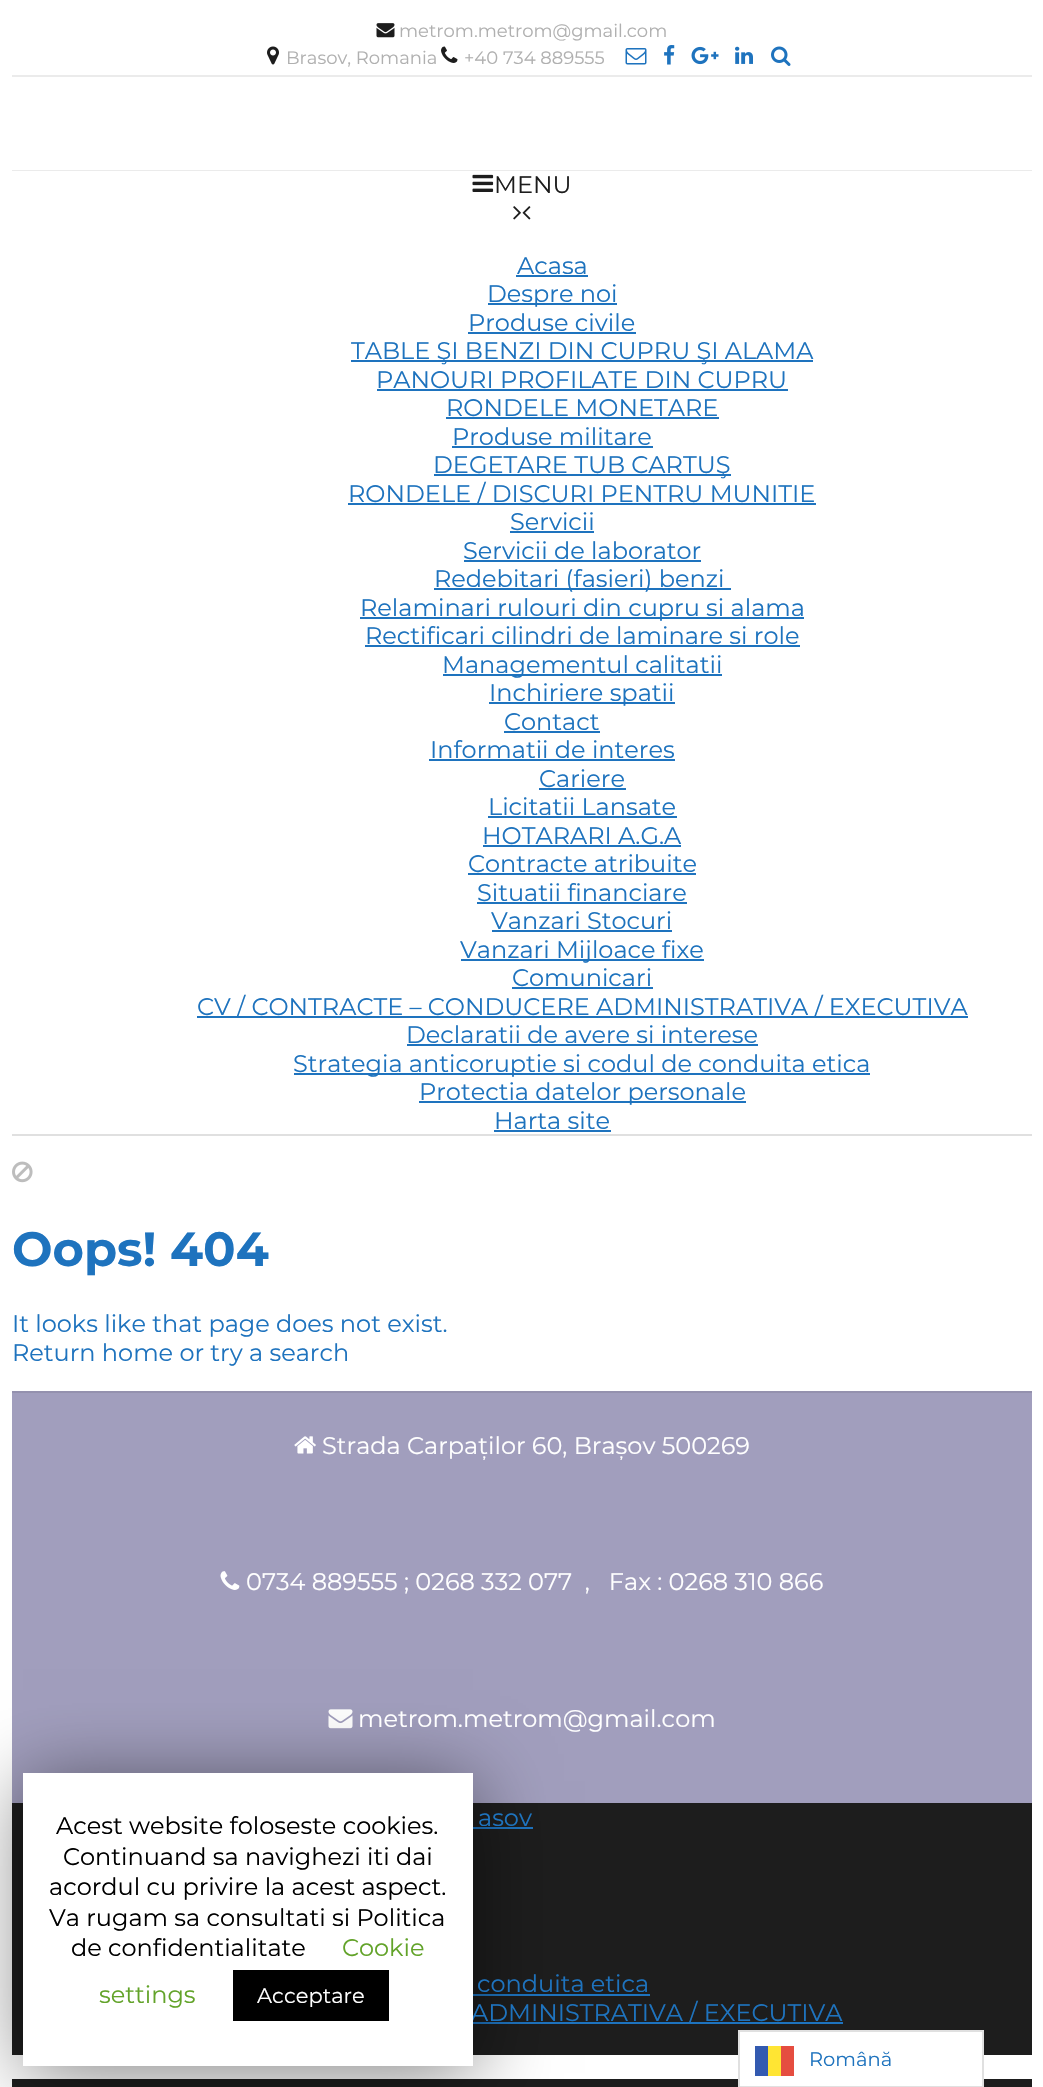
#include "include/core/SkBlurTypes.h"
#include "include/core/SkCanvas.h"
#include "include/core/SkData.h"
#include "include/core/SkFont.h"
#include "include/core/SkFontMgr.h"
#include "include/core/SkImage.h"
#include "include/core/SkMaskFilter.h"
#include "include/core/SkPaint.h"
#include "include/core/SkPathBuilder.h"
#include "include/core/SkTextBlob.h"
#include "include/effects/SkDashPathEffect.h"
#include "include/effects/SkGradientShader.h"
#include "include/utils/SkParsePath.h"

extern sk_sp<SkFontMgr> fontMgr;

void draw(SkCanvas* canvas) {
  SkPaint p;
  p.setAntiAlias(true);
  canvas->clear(SK_ColorWHITE);
  p.setColor(SkColorSetRGB(224, 224, 224));
  canvas->drawRect(SkRect::MakeLTRB(12, 1134, 1032, 1136), p);
  p.setColor(SkColorSetRGB(235, 235, 235));
  canvas->drawRect(SkRect::MakeLTRB(12, 75, 1032, 77), p);
  canvas->drawImageRect(SkImages::DeferredFromEncodedData(SkData::MakeFromFileName("images/1.png")), SkRect::MakeLTRB(376, 23, 395, 38), SkSamplingOptions());
  canvas->drawImageRect(SkImages::DeferredFromEncodedData(SkData::MakeFromFileName("images/2.png")), SkRect::MakeLTRB(267, 46, 279, 65), SkSamplingOptions());
  canvas->drawImageRect(SkImages::DeferredFromEncodedData(SkData::MakeFromFileName("images/3.png")), SkRect::MakeLTRB(441, 46, 458, 63), SkSamplingOptions());
  canvas->drawImageRect(SkImages::DeferredFromEncodedData(SkData::MakeFromFileName("images/4.png")), SkRect::MakeLTRB(625, 48, 647, 65), SkSamplingOptions());
  canvas->drawImageRect(SkImages::DeferredFromEncodedData(SkData::MakeFromFileName("images/5.png")), SkRect::MakeLTRB(664, 45, 675, 65), SkSamplingOptions());
  canvas->drawImageRect(SkImages::DeferredFromEncodedData(SkData::MakeFromFileName("images/6.png")), SkRect::MakeLTRB(691, 46, 719, 65), SkSamplingOptions());
  canvas->drawImageRect(SkImages::DeferredFromEncodedData(SkData::MakeFromFileName("images/7.png")), SkRect::MakeLTRB(735, 46, 753, 64), SkSamplingOptions());
  canvas->drawImageRect(SkImages::DeferredFromEncodedData(SkData::MakeFromFileName("images/8.png")), SkRect::MakeLTRB(771, 46, 791, 66), SkSamplingOptions());
  canvas->drawRect(SkRect::MakeLTRB(12, 170, 1032, 171), p);
  canvas->drawImageRect(SkImages::DeferredFromEncodedData(SkData::MakeFromFileName("images/9.png")), SkRect::MakeLTRB(472, 174, 494, 192), SkSamplingOptions());
  canvas->drawImageRect(SkImages::DeferredFromEncodedData(SkData::MakeFromFileName("images/10.png")), SkRect::MakeLTRB(513, 206, 521, 220), SkSamplingOptions());
  canvas->drawImageRect(SkImages::DeferredFromEncodedData(SkData::MakeFromFileName("images/11.png")), SkRect::MakeLTRB(522, 206, 531, 220), SkSamplingOptions());
  p.setColor(SkColorSetRGB(30, 115, 190));
  canvas->drawRect(SkRect::MakeLTRB(516, 275, 588, 277), p);
  canvas->drawRect(SkRect::MakeLTRB(488, 303, 617, 305), p);
  canvas->drawRect(SkRect::MakeLTRB(468, 332, 636, 334), p);
  canvas->drawRect(SkRect::MakeLTRB(351, 360, 813, 362), p);
  canvas->drawRect(SkRect::MakeLTRB(377, 389, 788, 391), p);
  canvas->drawRect(SkRect::MakeLTRB(446, 417, 719, 419), p);
  canvas->drawRect(SkRect::MakeLTRB(452, 446, 653, 448), p);
  canvas->drawRect(SkRect::MakeLTRB(434, 474, 731, 476), p);
  canvas->drawRect(SkRect::MakeLTRB(348, 503, 816, 505), p);
  canvas->drawRect(SkRect::MakeLTRB(510, 531, 594, 533), p);
  canvas->drawRect(SkRect::MakeLTRB(464, 560, 701, 562), p);
  canvas->drawRect(SkRect::MakeLTRB(434, 588, 731, 590), p);
  canvas->drawRect(SkRect::MakeLTRB(360, 617, 804, 619), p);
  canvas->drawRect(SkRect::MakeLTRB(365, 645, 800, 647), p);
  canvas->drawRect(SkRect::MakeLTRB(443, 674, 722, 676), p);
  canvas->drawRect(SkRect::MakeLTRB(489, 702, 675, 704), p);
  canvas->drawRect(SkRect::MakeLTRB(504, 731, 600, 733), p);
  canvas->drawRect(SkRect::MakeLTRB(429, 759, 675, 761), p);
  canvas->drawRect(SkRect::MakeLTRB(539, 788, 626, 790), p);
  canvas->drawRect(SkRect::MakeLTRB(488, 816, 677, 818), p);
  canvas->drawRect(SkRect::MakeLTRB(483, 845, 681, 847), p);
  canvas->drawRect(SkRect::MakeLTRB(468, 873, 696, 875), p);
  canvas->drawRect(SkRect::MakeLTRB(477, 902, 687, 904), p);
  canvas->drawRect(SkRect::MakeLTRB(492, 930, 672, 932), p);
  canvas->drawRect(SkRect::MakeLTRB(461, 959, 704, 961), p);
  canvas->drawRect(SkRect::MakeLTRB(512, 987, 653, 989), p);
  canvas->drawRect(SkRect::MakeLTRB(197, 1016, 968, 1018), p);
  canvas->drawRect(SkRect::MakeLTRB(407, 1044, 758, 1046), p);
  canvas->drawRect(SkRect::MakeLTRB(294, 1073, 870, 1075), p);
  canvas->drawRect(SkRect::MakeLTRB(419, 1101, 746, 1103), p);
  canvas->drawRect(SkRect::MakeLTRB(494, 1130, 611, 1132), p);
  canvas->drawImageRect(SkImages::DeferredFromEncodedData(SkData::MakeFromFileName("images/12.png")), SkRect::MakeLTRB(12, 1161, 33, 1183), SkSamplingOptions());
  p.setColor(SkColorSetRGB(161, 158, 189));
  canvas->drawRect(SkRect::MakeLTRB(12, 1393, 1032, 1803), p);
  p.setColor(SkColorSetRGB(148, 145, 174));
  canvas->drawRect(SkRect::MakeLTRB(12, 1391, 1032, 1393), p);
  canvas->drawImageRect(SkImages::DeferredFromEncodedData(SkData::MakeFromFileName("images/13.png")), SkRect::MakeLTRB(294, 1436, 316, 1454), SkSamplingOptions());
  canvas->drawImageRect(SkImages::DeferredFromEncodedData(SkData::MakeFromFileName("images/14.png")), SkRect::MakeLTRB(220, 1571, 240, 1590), SkSamplingOptions());
  canvas->drawImageRect(SkImages::DeferredFromEncodedData(SkData::MakeFromFileName("images/15.png")), SkRect::MakeLTRB(328, 1709, 353, 1729), SkSamplingOptions());
  p.setColor(SkColorSetRGB(29, 29, 29));
  canvas->drawRect(SkRect::MakeLTRB(12, 1803, 1032, 2055), p);
  p.setColor(SkColorSetRGB(30, 115, 190));
  canvas->drawRect(SkRect::MakeLTRB(473, 1827, 533, 1829), p);
  canvas->drawRect(SkRect::MakeLTRB(473, 1994, 650, 1996), p);
  canvas->drawRect(SkRect::MakeLTRB(473, 2022, 843, 2024), p);
  p.setColor(SkColorSetRGB(29, 29, 29));
  canvas->drawRect(SkRect::MakeLTRB(12, 2079, 1032, 2087), p);
  p.setColor(SkColorSetARGB(128, 0, 0, 0));
  p.setMaskFilter(SkMaskFilter::MakeBlur(kNormal_SkBlurStyle, 37.5f));
  canvas->drawRect(SkRect::MakeLTRB(23, 1781, 473, 2073), p);
  p.setMaskFilter(nullptr);
  p.setColor(SK_ColorWHITE);
  canvas->drawRect(SkRect::MakeLTRB(739, 2031, 983, 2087), p);
  p.setStyle(SkPaint::kStroke_Style);
  p.setStrokeWidth(2);
  p.setColor(SkColorSetRGB(224, 224, 224));
  canvas->drawRect(SkRect::MakeLTRB(739, 2031, 983, 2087), p);
  p.setStyle(SkPaint::kFill_Style);
  p.setColor(SkColorSetRGB(51, 90, 176));
  canvas->drawRect(SkRect::MakeLTRB(755, 2046, 768, 2076), p);
  p.setColor(SkColorSetRGB(255, 229, 51));
  canvas->drawRect(SkRect::MakeLTRB(768, 2046, 781, 2076), p);
  p.setColor(SkColorSetRGB(229, 77, 64));
  canvas->drawRect(SkRect::MakeLTRB(781, 2046, 794, 2076), p);
  SkFont font1(fontMgr->matchFamilyStyle("Montserrat", SkFontStyle::Normal()), 18);
  font1.setSubpixel(true);
  p.setColor(SkColorSetRGB(176, 176, 176));
  canvas->drawString("metrom.metrom@gmail.com", 399, 37, font1, p);
  canvas->drawString("Brasov, Romania", 286, 64, font1, p);
  canvas->drawString("+40 734 889555", 464, 64, font1, p);
  SkFont font2(fontMgr->matchFamilyStyle("Montserrat", SkFontStyle::Normal()), 24);
  font2.setSubpixel(true);
  p.setColor(SkColorSetRGB(29, 29, 29));
  canvas->drawString("MENU", 494, 193, font2, p);
  p.setColor(SkColorSetRGB(30, 115, 190));
  canvas->drawString("Acasa", 517, 274, font2, p);
  canvas->drawString("Despre noi", 487, 302, font2, p);
  canvas->drawString("Produse civile", 468, 331, font2, p);
  canvas->drawString("TABLE ŞI BENZI DIN CUPRU ŞI ALAMA", 351, 359, font2, p);
  canvas->drawString("PANOURI PROFILATE DIN CUPRU", 376, 388, font2, p);
  canvas->drawString("RONDELE MONETARE", 446, 416, font2, p);
  canvas->drawString("Produse militare", 452, 445, font2, p);
  canvas->drawString("DEGETARE TUB CARTUŞ", 433, 473, font2, p);
  canvas->drawString("RONDELE / DISCURI PENTRU MUNITIE", 348, 502, font2, p);
  canvas->drawString("Servicii", 510, 530, font2, p);
  canvas->drawString("Servicii de laborator", 463, 559, font2, p);
  canvas->drawString("Redebitari (fasieri) benzi", 434, 587, font2, p);
  canvas->drawString("Relaminari rulouri din cupru si alama", 360, 616, font2, p);
  canvas->drawString("Rectificari cilindri de laminare si role", 365, 644, font2, p);
  canvas->drawString("Managementul calitatii", 442, 673, font2, p);
  canvas->drawString("Inchiriere spatii", 489, 701, font2, p);
  canvas->drawString("Contact", 504, 730, font2, p);
  canvas->drawString("Informatii de interes", 430, 758, font2, p);
  canvas->drawString("Cariere", 539, 787, font2, p);
  canvas->drawString("Licitatii Lansate", 488, 815, font2, p);
  canvas->drawString("HOTARARI A.G.A", 482, 844, font2, p);
  canvas->drawString("Contracte atribuite", 468, 872, font2, p);
  canvas->drawString("Situatii financiare", 477, 901, font2, p);
  canvas->drawString("Vanzari Stocuri", 491, 929, font2, p);
  canvas->drawString("Vanzari Mijloace fixe", 460, 958, font2, p);
  canvas->drawString("Comunicari", 512, 986, font2, p);
  canvas->drawString("CV / CONTRACTE – CONDUCERE ADMINISTRATIVA / EXECUTIVA", 197, 1015, font2, p);
  canvas->drawString("Declaratii de avere si interese", 406, 1043, font2, p);
  canvas->drawString("Strategia anticoruptie si codul de conduita etica", 293, 1072, font2, p);
  canvas->drawString("Protectia datelor personale", 419, 1100, font2, p);
  canvas->drawString("Harta site", 494, 1129, font2, p);
  SkFont font3(fontMgr->matchFamilyStyle("Montserrat", SkFontStyle::Bold()), 48);
  font3.setSubpixel(true);
  canvas->drawString("Oops! 404", 12, 1266, font3, p);
  canvas->drawString("It looks like that page does not exist.", 12, 1332, font2, p);
  canvas->drawString("Return home or try a search", 12, 1361, font2, p);
  p.setColor(SK_ColorWHITE);
  canvas->drawString("Strada Carpaților 60, Brașov 500269", 322, 1454, font2, p);
  canvas->drawString("0734 889555 ; 0268 332 077  ,   Fax : 0268 310 866", 246, 1590, font2, p);
  canvas->drawString("metrom.metrom@gmail.com", 358, 1727, font2, p);
  p.setColor(SkColorSetRGB(30, 115, 190));
  canvas->drawString("asov", 478, 1826, font2, p);
  canvas->drawString("conduita etica", 477, 1992, font2, p);
  canvas->drawString("ADMINISTRATIVA / EXECUTIVA", 471, 2021, font2, p);
  p.setColor(SK_ColorWHITE);
  canvas->drawRect(SkRect::MakeLTRB(23, 1773, 473, 2066), p);
  p.setColor(SK_ColorBLACK);
  canvas->drawString("Acest website foloseste cookies.", 56, 1834, font2, p);
  canvas->drawString("Continuand sa navighezi iti dai", 63, 1865, font2, p);
  canvas->drawString("acordul cu privire la acest aspect.", 49, 1895, font2, p);
  canvas->drawString("Va rugam sa consultati si Politica", 49, 1926, font2, p);
  canvas->drawString("de confidentialitate", 71, 1956, font2, p);
  p.setColor(SkColorSetRGB(98, 163, 41));
  canvas->drawString("Cookie", 342, 1956, font2, p);
  canvas->drawString("settings", 99, 2003, font2, p);
  p.setColor(SK_ColorBLACK);
  canvas->drawRect(SkRect::MakeLTRB(233, 1970, 389, 2021), p);
  SkFont font4(fontMgr->matchFamilyStyle("Montserrat", SkFontStyle::Normal()), 21);
  font4.setSubpixel(true);
  p.setColor(SK_ColorWHITE);
  canvas->drawString("Acceptare", 257, 2003, font4, p);
  SkFont font5(fontMgr->matchFamilyStyle("Montserrat", SkFontStyle::Normal()), 19.5f);
  font5.setSubpixel(true);
  p.setColor(SkColorSetRGB(30, 115, 190));
  canvas->drawString("Română", 809, 2066, font5, p);
}
